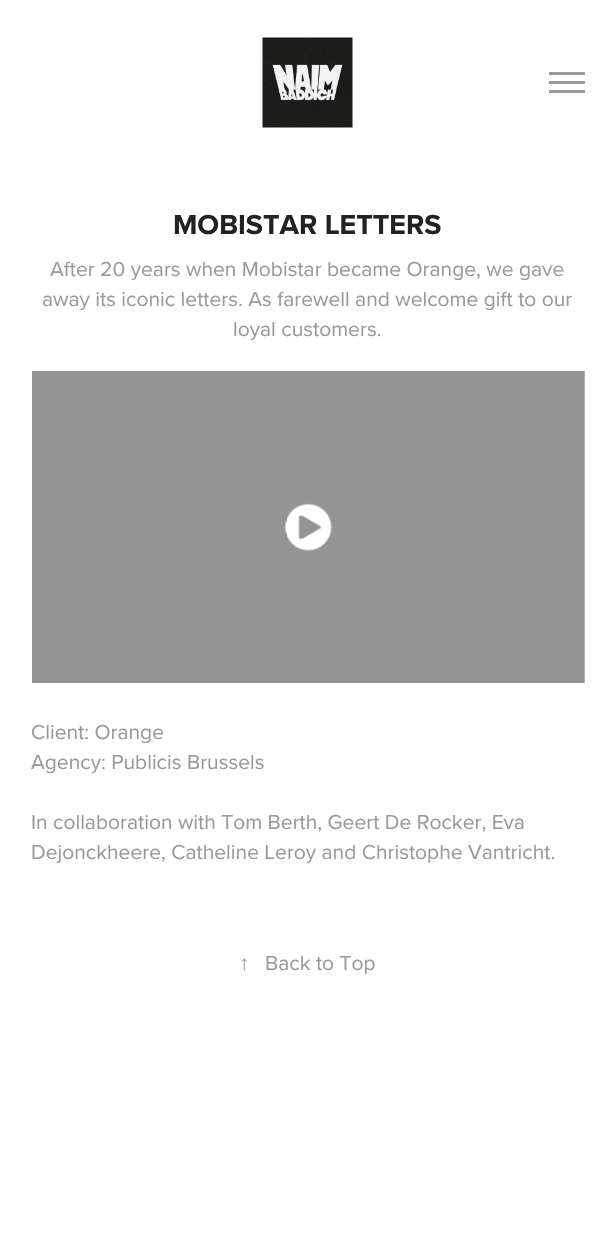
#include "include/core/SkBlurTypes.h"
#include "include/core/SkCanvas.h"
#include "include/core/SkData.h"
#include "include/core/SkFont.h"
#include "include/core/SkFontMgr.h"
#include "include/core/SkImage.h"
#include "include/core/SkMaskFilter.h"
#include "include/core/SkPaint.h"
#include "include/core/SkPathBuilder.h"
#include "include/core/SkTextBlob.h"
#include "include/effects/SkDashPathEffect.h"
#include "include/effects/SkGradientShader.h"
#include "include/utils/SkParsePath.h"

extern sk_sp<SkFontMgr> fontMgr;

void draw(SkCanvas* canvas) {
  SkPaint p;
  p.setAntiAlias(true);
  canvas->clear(SK_ColorWHITE);
  canvas->drawImageRect(SkImages::DeferredFromEncodedData(SkData::MakeFromFileName("images/1.png")), SkRect::MakeLTRB(262, 37, 353, 128), SkSamplingOptions());
  p.setColor(SkColorSetRGB(153, 153, 153));
  canvas->drawRect(SkRect::MakeLTRB(549, 72, 585, 75), p);
  canvas->drawRect(SkRect::MakeLTRB(549, 81, 585, 84), p);
  canvas->drawRect(SkRect::MakeLTRB(549, 90, 585, 93), p);
  canvas->drawImageRect(SkImages::DeferredFromEncodedData(SkData::MakeFromFileName("images/2.png")), SkRect::MakeLTRB(32, 371, 585, 683), SkSamplingOptions());
  SkFont font1(fontMgr->matchFamilyStyle("Proxima Nova", SkFontStyle::Bold()), 28.5f);
  font1.setSubpixel(true);
  p.setColor(SkColorSetRGB(34, 34, 34));
  canvas->drawString("MOBISTAR LETTERS", 173, 234, font1, p);
  SkFont font2(fontMgr->matchFamilyStyle("Proxima Nova", SkFontStyle::Normal()), 21);
  font2.setSubpixel(true);
  p.setColor(SkColorSetRGB(153, 153, 153));
  canvas->drawString("After 20 years when Mobistar became Orange, we gave", 50, 276, font2, p);
  canvas->drawString("away its iconic letters. As farewell and welcome gift to our", 42, 306, font2, p);
  canvas->drawString("loyal customers.", 233, 336, font2, p);
  canvas->drawString("Client: Orange", 31, 739, font2, p);
  canvas->drawString("Agency: Publicis Brussels", 31, 769, font2, p);
  canvas->drawString("In collaboration with Tom Berth, Geert De Rocker, Eva", 31, 829, font2, p);
  canvas->drawString("Dejonckheere, Catheline Leroy and Christophe Vantricht.", 31, 859, font2, p);
  SkFont font3(fontMgr->matchFamilyStyle("Liberation Serif", SkFontStyle::Normal()), 21);
  font3.setSubpixel(true);
  canvas->drawString("↑", 239, 970, font3, p);
  canvas->drawString("Back to Top", 265, 970, font2, p);
}
